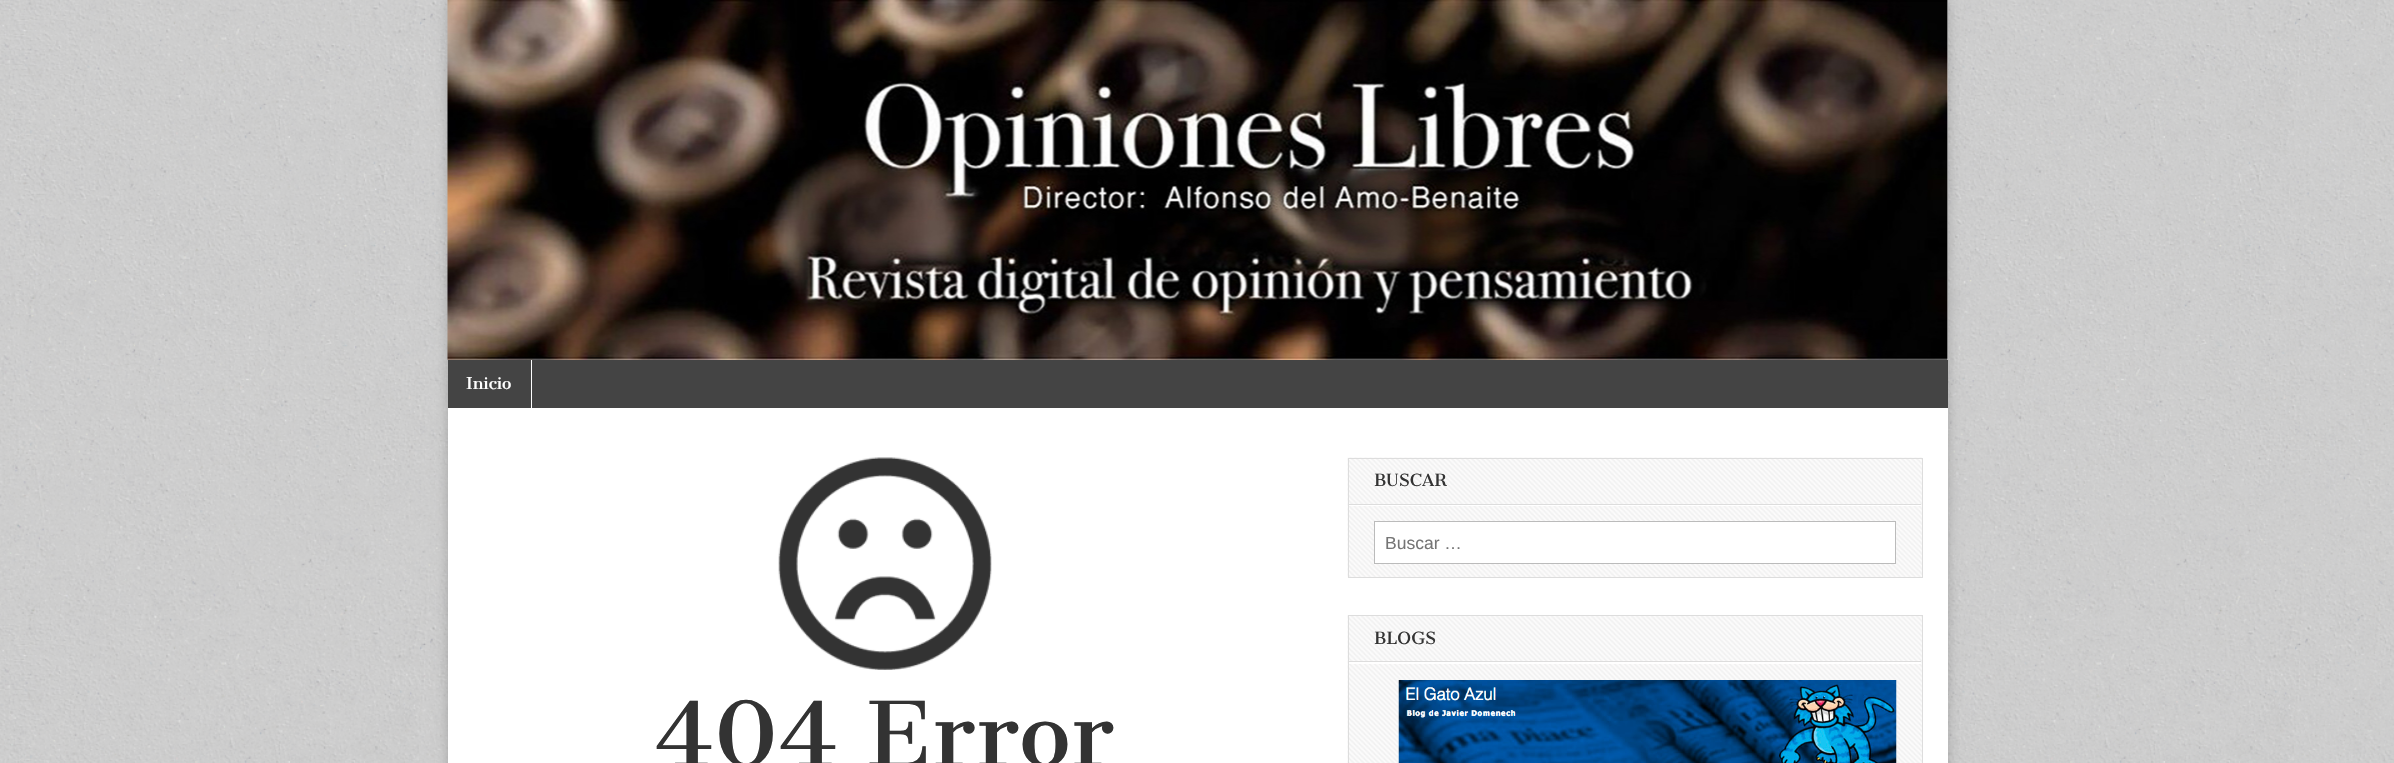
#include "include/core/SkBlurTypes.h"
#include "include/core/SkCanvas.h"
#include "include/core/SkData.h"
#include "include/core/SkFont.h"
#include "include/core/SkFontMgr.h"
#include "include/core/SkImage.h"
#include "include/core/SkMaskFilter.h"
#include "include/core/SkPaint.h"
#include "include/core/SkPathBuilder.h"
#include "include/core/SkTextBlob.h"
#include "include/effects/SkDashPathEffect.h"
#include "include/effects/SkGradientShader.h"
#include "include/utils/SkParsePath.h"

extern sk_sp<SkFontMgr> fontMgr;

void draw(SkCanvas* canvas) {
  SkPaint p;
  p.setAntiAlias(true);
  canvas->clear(SK_ColorWHITE);
  canvas->drawImageRect(SkImages::DeferredFromEncodedData(SkData::MakeFromFileName("images/1.png")), SkRect::MakeLTRB(0, 0, 2394, 763), SkSamplingOptions());
  p.setColor(SkColorSetARGB(51, 0, 0, 0));
  p.setMaskFilter(SkMaskFilter::MakeBlur(kNormal_SkBlurStyle, 6));
  canvas->drawRect(SkRect::MakeLTRB(448, 0, 1948, 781), p);
  p.setMaskFilter(nullptr);
  p.setColor(SK_ColorWHITE);
  canvas->drawRect(SkRect::MakeLTRB(448, 0, 1948, 763), p);
  canvas->drawImageRect(SkImages::DeferredFromEncodedData(SkData::MakeFromFileName("images/2.png")), SkRect::MakeLTRB(447, 0, 1948, 360), SkSamplingOptions());
  p.setColor(SkColorSetRGB(68, 68, 68));
  canvas->drawRect(SkRect::MakeLTRB(448, 360, 1948, 408), p);
  p.setColor(SK_ColorWHITE);
  canvas->drawRect(SkRect::MakeLTRB(531, 360, 532, 408), p);
  canvas->drawImageRect(SkImages::DeferredFromEncodedData(SkData::MakeFromFileName("images/3.png")), SkRect::MakeLTRB(1347, 457, 1923, 578), SkSamplingOptions());
  p.setStyle(SkPaint::kStroke_Style);
  p.setStrokeWidth(1);
  p.setColor(SkColorSetRGB(221, 221, 221));
  canvas->drawRect(SkRect::MakeLTRB(1348.5f, 458.5f, 1922.5f, 577.5f), p);
  p.setStyle(SkPaint::kFill_Style);
  p.setColor(SK_ColorWHITE);
  canvas->drawRect(SkRect::MakeLTRB(1349, 505, 1921, 506), p);
  p.setColor(SkColorSetRGB(221, 221, 221));
  canvas->drawRect(SkRect::MakeLTRB(1349, 504, 1921, 505), p);
  p.setColor(SK_ColorWHITE);
  canvas->drawRect(SkRect::MakeLTRB(1374.5f, 521.5f, 1895.5f, 563.5f), p);
  p.setStyle(SkPaint::kStroke_Style);
  p.setColor(SkColorSetRGB(187, 187, 187));
  canvas->drawRect(SkRect::MakeLTRB(1374.5f, 521.5f, 1895.5f, 563.5f), p);
  canvas->drawImageRect(SkImages::DeferredFromEncodedData(SkData::MakeFromFileName("images/4.png")), SkRect::MakeLTRB(1347, 615, 1922, 763), SkSamplingOptions());
  p.setColor(SkColorSetRGB(221, 221, 221));
  canvas->drawRect(SkRect::MakeLTRB(1348.5f, 615.5f, 1922.5f, 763.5f), p);
  p.setStyle(SkPaint::kFill_Style);
  p.setColor(SK_ColorWHITE);
  canvas->drawRect(SkRect::MakeLTRB(1349, 662, 1921, 664), p);
  p.setColor(SkColorSetRGB(221, 221, 221));
  canvas->drawRect(SkRect::MakeLTRB(1349, 661, 1921, 662), p);
  canvas->drawImageRect(SkImages::DeferredFromEncodedData(SkData::MakeFromFileName("images/5.png")), SkRect::MakeLTRB(1398, 680, 1897, 763), SkSamplingOptions());
  canvas->drawImageRect(SkImages::DeferredFromEncodedData(SkData::MakeFromFileName("images/6.png")), SkRect::MakeLTRB(778, 457, 992, 670), SkSamplingOptions());
  SkFont font1(fontMgr->matchFamilyStyle("Cantata One", SkFontStyle::Normal()), 16);
  font1.setSubpixel(true);
  p.setColor(SK_ColorWHITE);
  canvas->drawString("Inicio", 466, 389, font1, p);
  SkFont font2(fontMgr->matchFamilyStyle("Cantata One", SkFontStyle::Normal()), 16.5f);
  font2.setSubpixel(true);
  p.setColor(SkColorSetRGB(51, 51, 51));
  canvas->drawString("BUSCAR", 1374, 486, font2, p);
  SkFont font3(fontMgr->matchFamilyStyle("Liberation Sans", SkFontStyle::Normal()), 17.5f);
  font3.setSubpixel(true);
  p.setColor(SkColorSetRGB(117, 117, 117));
  canvas->drawString("Buscar …", 1385, 549, font3, p);
  p.setColor(SkColorSetRGB(51, 51, 51));
  canvas->drawString("BLOGS", 1374, 644, font2, p);
  SkFont font4(fontMgr->matchFamilyStyle("Cantata One", SkFontStyle::Normal()), 87.5f);
  font4.setSubpixel(true);
  canvas->drawString("404 Error", 655, 766, font4, p);
}
